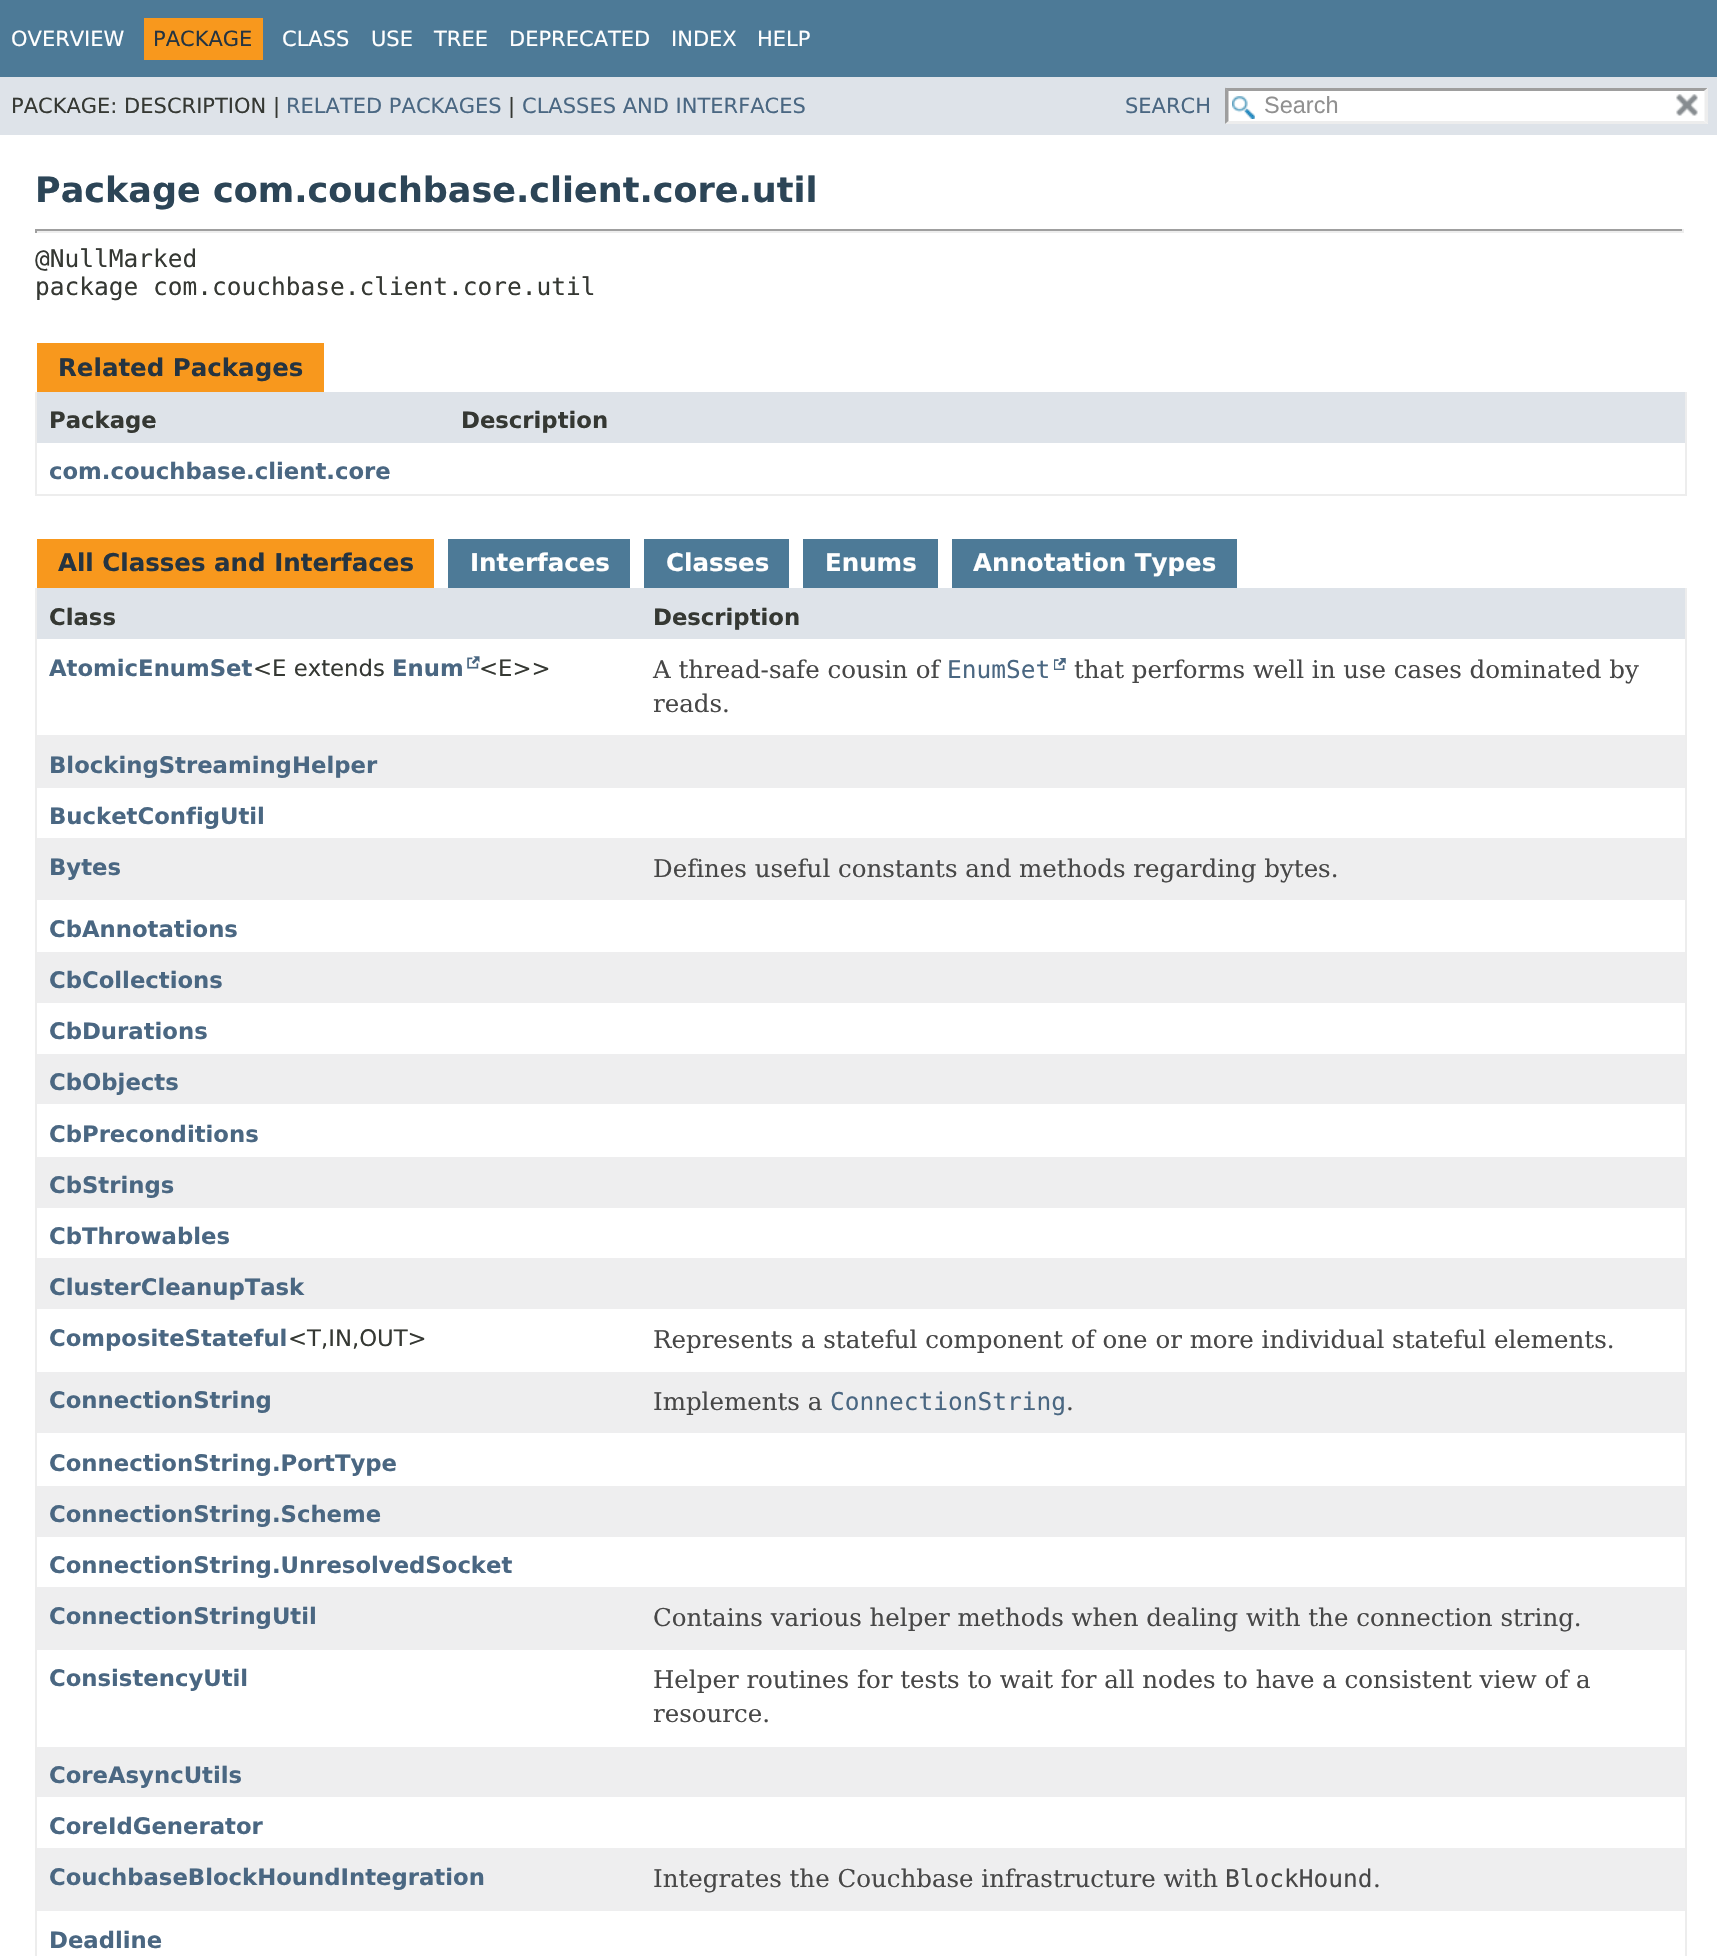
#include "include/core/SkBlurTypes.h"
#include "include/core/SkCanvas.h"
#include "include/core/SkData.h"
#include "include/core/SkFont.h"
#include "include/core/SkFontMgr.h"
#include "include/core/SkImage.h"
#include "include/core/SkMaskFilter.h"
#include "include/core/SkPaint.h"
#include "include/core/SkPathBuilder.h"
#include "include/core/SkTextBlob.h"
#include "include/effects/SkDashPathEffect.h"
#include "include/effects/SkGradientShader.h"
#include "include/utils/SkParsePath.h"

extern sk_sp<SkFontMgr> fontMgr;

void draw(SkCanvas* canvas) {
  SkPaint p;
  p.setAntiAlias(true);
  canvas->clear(SK_ColorWHITE);
  p.setColor(SkColorSetRGB(77, 122, 151));
  canvas->drawRect(SkRect::MakeLTRB(0, 0, 1717, 77), p);
  p.setColor(SkColorSetRGB(248, 152, 29));
  canvas->drawRect(SkRect::MakeLTRB(144, 18, 263, 60), p);
  p.setColor(SkColorSetRGB(222, 227, 233));
  canvas->drawRect(SkRect::MakeLTRB(0, 77, 1717, 135), p);
  p.setColor(SK_ColorWHITE);
  canvas->drawRect(SkRect::MakeLTRB(1225, 88, 1708, 124), p);
  canvas->drawImageRect(SkImages::DeferredFromEncodedData(SkData::MakeFromFileName("images/1.png")), SkRect::MakeLTRB(1232, 96, 1255, 119), SkSamplingOptions());
  p.setColor(SkColorSetRGB(158, 158, 158));
  canvas->drawPath(SkPathBuilder().moveTo(1225, 88).lineTo(1708, 88).lineTo(1704, 91).lineTo(1228, 91).close().detach(), p);
  p.setColor(SkColorSetRGB(237, 237, 237));
  canvas->drawPath(SkPathBuilder().moveTo(1708, 87.5f).lineTo(1708, 124).lineTo(1704.5f, 121).lineTo(1704.5f, 91).close().detach(), p);
  canvas->drawPath(SkPathBuilder().moveTo(1708, 124).lineTo(1225, 124).lineTo(1228, 121).lineTo(1704, 121).close().detach(), p);
  p.setColor(SkColorSetRGB(158, 158, 158));
  canvas->drawPath(SkPathBuilder().moveTo(1225, 124).lineTo(1225, 87.5f).lineTo(1228.5f, 91).lineTo(1228.5f, 121).close().detach(), p);
  canvas->drawImageRect(SkImages::DeferredFromEncodedData(SkData::MakeFromFileName("images/2.png")), SkRect::MakeLTRB(1676, 94, 1698, 116), SkSamplingOptions());
  p.setColor(SkColorSetRGB(159, 159, 159));
  canvas->drawRect(SkRect::MakeLTRB(35, 229, 1684, 231), p);
  p.setColor(SkColorSetRGB(238, 238, 238));
  canvas->drawRect(SkRect::MakeLTRB(1682, 229, 1684, 233), p);
  canvas->drawRect(SkRect::MakeLTRB(35, 231, 1684, 233), p);
  p.setColor(SkColorSetRGB(159, 159, 159));
  canvas->drawRect(SkRect::MakeLTRB(35, 229, 37, 233), p);
  p.setColor(SkColorSetRGB(248, 152, 29));
  canvas->drawRect(SkRect::MakeLTRB(37, 343, 324, 392), p);
  p.setColor(SkColorSetRGB(237, 237, 237));
  canvas->drawRect(SkRect::MakeLTRB(1685, 392, 1687, 495), p);
  canvas->drawRect(SkRect::MakeLTRB(35, 494, 1687, 496), p);
  canvas->drawRect(SkRect::MakeLTRB(35, 392, 37, 495), p);
  p.setColor(SkColorSetRGB(222, 227, 233));
  canvas->drawRect(SkRect::MakeLTRB(37, 392, 1685, 443), p);
  p.setColor(SkColorSetRGB(248, 152, 29));
  canvas->drawRect(SkRect::MakeLTRB(37, 539, 434, 588), p);
  p.setColor(SkColorSetRGB(77, 122, 151));
  canvas->drawRect(SkRect::MakeLTRB(448, 539, 630, 588), p);
  canvas->drawRect(SkRect::MakeLTRB(644, 539, 789, 588), p);
  canvas->drawRect(SkRect::MakeLTRB(803, 539, 938, 588), p);
  canvas->drawRect(SkRect::MakeLTRB(952, 539, 1237, 588), p);
  p.setColor(SkColorSetRGB(237, 237, 237));
  canvas->drawRect(SkRect::MakeLTRB(1685, 588, 1687, 1956), p);
  canvas->drawRect(SkRect::MakeLTRB(35, 588, 37, 1956), p);
  p.setColor(SkColorSetRGB(222, 227, 233));
  canvas->drawRect(SkRect::MakeLTRB(37, 588, 1685, 639), p);
  canvas->drawImageRect(SkImages::DeferredFromEncodedData(SkData::MakeFromFileName("images/3.png")), SkRect::MakeLTRB(467, 656, 480, 669), SkSamplingOptions());
  canvas->drawImageRect(SkImages::DeferredFromEncodedData(SkData::MakeFromFileName("images/4.png")), SkRect::MakeLTRB(1054, 658, 1066, 670), SkSamplingOptions());
  p.setColor(SkColorSetRGB(238, 238, 239));
  canvas->drawRect(SkRect::MakeLTRB(37, 735, 1685, 788), p);
  canvas->drawRect(SkRect::MakeLTRB(37, 838, 1685, 900), p);
  canvas->drawRect(SkRect::MakeLTRB(37, 952, 1685, 1003), p);
  canvas->drawRect(SkRect::MakeLTRB(37, 1054, 1685, 1104), p);
  canvas->drawRect(SkRect::MakeLTRB(37, 1157, 1685, 1208), p);
  canvas->drawRect(SkRect::MakeLTRB(37, 1258, 1685, 1309), p);
  canvas->drawRect(SkRect::MakeLTRB(37, 1372, 1685, 1433), p);
  canvas->drawRect(SkRect::MakeLTRB(37, 1486, 1685, 1537), p);
  canvas->drawRect(SkRect::MakeLTRB(37, 1587, 1685, 1650), p);
  canvas->drawRect(SkRect::MakeLTRB(37, 1747, 1685, 1797), p);
  canvas->drawRect(SkRect::MakeLTRB(37, 1848, 1685, 1911), p);
  SkFont font1(fontMgr->matchFamilyStyle("DejaVu Sans", SkFontStyle::Normal()), 21);
  font1.setSubpixel(true);
  p.setColor(SK_ColorWHITE);
  canvas->drawString("OVERVIEW", 11, 46, font1, p);
  p.setColor(SkColorSetRGB(37, 52, 65));
  canvas->drawString("PACKAGE", 153, 46, font1, p);
  p.setColor(SK_ColorWHITE);
  canvas->drawString("CLASS", 282, 46, font1, p);
  canvas->drawString("USE", 371, 46, font1, p);
  canvas->drawString("TREE", 434, 46, font1, p);
  canvas->drawString("DEPRECATED", 509, 46, font1, p);
  canvas->drawString("INDEX", 671, 46, font1, p);
  canvas->drawString("HELP", 757, 46, font1, p);
  p.setColor(SkColorSetRGB(53, 56, 51));
  canvas->drawString("PACKAGE: DESCRIPTION |", 11, 113, font1, p);
  p.setColor(SkColorSetRGB(74, 103, 130));
  canvas->drawString("RELATED PACKAGES", 286, 113, font1, p);
  p.setColor(SkColorSetRGB(53, 56, 51));
  canvas->drawString("|", 508, 113, font1, p);
  p.setColor(SkColorSetRGB(74, 103, 130));
  canvas->drawString("CLASSES AND INTERFACES", 522, 113, font1, p);
  canvas->drawString("SEARCH", 1125, 113, font1, p);
  SkFont font2(fontMgr->matchFamilyStyle("Liberation Sans", SkFontStyle::Normal()), 23.5f);
  font2.setSubpixel(true);
  p.setColor(SkColorSetRGB(144, 144, 144));
  canvas->drawString("Search", 1264, 113, font2, p);
  SkFont font3(fontMgr->matchFamilyStyle("DejaVu Sans", SkFontStyle::Bold()), 35);
  font3.setSubpixel(true);
  p.setColor(SkColorSetRGB(44, 69, 87));
  canvas->drawString("Package com.couchbase.client.core.util", 35, 202, font3, p);
  SkFont font4(fontMgr->matchFamilyStyle("DejaVu Sans Mono", SkFontStyle::Normal()), 24.5f);
  font4.setSubpixel(true);
  p.setColor(SkColorSetRGB(53, 56, 51));
  canvas->drawString("@NullMarked", 35, 267, font4, p);
  canvas->drawString("package com.couchbase.client.core.util", 35, 295, font4, p);
  SkFont font5(fontMgr->matchFamilyStyle("DejaVu Sans", SkFontStyle::Bold()), 24.5f);
  font5.setSubpixel(true);
  p.setColor(SkColorSetRGB(37, 52, 65));
  canvas->drawString("Related Packages", 58, 376, font5, p);
  SkFont font6(fontMgr->matchFamilyStyle("DejaVu Sans", SkFontStyle::Bold()), 22.75f);
  font6.setSubpixel(true);
  p.setColor(SkColorSetRGB(53, 56, 51));
  canvas->drawString("Package", 49, 428, font6, p);
  canvas->drawString("Description", 461, 428, font6, p);
  p.setColor(SkColorSetRGB(74, 103, 130));
  canvas->drawString("com.couchbase.client.core", 49, 479, font6, p);
  p.setColor(SkColorSetRGB(37, 52, 65));
  canvas->drawString("All Classes and Interfaces", 58, 571, font5, p);
  p.setColor(SK_ColorWHITE);
  canvas->drawString("Interfaces", 470, 571, font5, p);
  canvas->drawString("Classes", 666, 571, font5, p);
  canvas->drawString("Enums", 825, 571, font5, p);
  canvas->drawString("Annotation Types", 973, 571, font5, p);
  p.setColor(SkColorSetRGB(53, 56, 51));
  canvas->drawString("Class", 49, 625, font6, p);
  canvas->drawString("Description", 653, 625, font6, p);
  p.setColor(SkColorSetRGB(74, 103, 130));
  canvas->drawString("AtomicEnumSet", 49, 676, font6, p);
  SkFont font7(fontMgr->matchFamilyStyle("DejaVu Sans", SkFontStyle::Normal()), 22.75f);
  font7.setSubpixel(true);
  p.setColor(SkColorSetRGB(53, 56, 51));
  canvas->drawString("<E extends", 253, 676, font7, p);
  p.setColor(SkColorSetRGB(74, 103, 130));
  canvas->drawString("Enum", 392, 676, font6, p);
  p.setColor(SkColorSetRGB(53, 56, 51));
  canvas->drawString("<E>>", 479, 676, font7, p);
  SkFont font8(fontMgr->matchFamilyStyle("DejaVu Serif", SkFontStyle::Normal()), 24.5f);
  font8.setSubpixel(true);
  p.setColor(SkColorSetRGB(71, 71, 71));
  canvas->drawString("A thread-safe cousin of", 653, 678, font8, p);
  p.setColor(SkColorSetRGB(74, 103, 130));
  canvas->drawString("EnumSet", 947, 678, font4, p);
  p.setColor(SkColorSetRGB(71, 71, 71));
  canvas->drawString("that performs well in use cases dominated by", 1074, 678, font8, p);
  canvas->drawString("reads.", 653, 712, font8, p);
  p.setColor(SkColorSetRGB(74, 103, 130));
  canvas->drawString("BlockingStreamingHelper", 49, 773, font6, p);
  canvas->drawString("BucketConfigUtil", 49, 824, font6, p);
  canvas->drawString("Bytes", 49, 875, font6, p);
  p.setColor(SkColorSetRGB(71, 71, 71));
  canvas->drawString("Defines useful constants and methods regarding bytes.", 653, 877, font8, p);
  p.setColor(SkColorSetRGB(74, 103, 130));
  canvas->drawString("CbAnnotations", 49, 937, font6, p);
  canvas->drawString("CbCollections", 49, 988, font6, p);
  canvas->drawString("CbDurations", 49, 1039, font6, p);
  canvas->drawString("CbObjects", 49, 1090, font6, p);
  canvas->drawString("CbPreconditions", 49, 1142, font6, p);
  canvas->drawString("CbStrings", 49, 1193, font6, p);
  canvas->drawString("CbThrowables", 49, 1244, font6, p);
  canvas->drawString("ClusterCleanupTask", 49, 1295, font6, p);
  canvas->drawString("CompositeStateful", 49, 1346, font6, p);
  p.setColor(SkColorSetRGB(53, 56, 51));
  canvas->drawString("<T,IN,OUT>", 288, 1346, font7, p);
  p.setColor(SkColorSetRGB(71, 71, 71));
  canvas->drawString("Represents a stateful component of one or more individual stateful elements.", 653, 1348, font8, p);
  p.setColor(SkColorSetRGB(74, 103, 130));
  canvas->drawString("ConnectionString", 49, 1408, font6, p);
  p.setColor(SkColorSetRGB(71, 71, 71));
  canvas->drawString("Implements a", 653, 1410, font8, p);
  p.setColor(SkColorSetRGB(74, 103, 130));
  canvas->drawString("ConnectionString", 830, 1410, font4, p);
  p.setColor(SkColorSetRGB(71, 71, 71));
  canvas->drawString(".", 1066, 1410, font8, p);
  p.setColor(SkColorSetRGB(74, 103, 130));
  canvas->drawString("ConnectionString.PortType", 49, 1471, font6, p);
  canvas->drawString("ConnectionString.Scheme", 49, 1522, font6, p);
  canvas->drawString("ConnectionString.UnresolvedSocket", 49, 1573, font6, p);
  canvas->drawString("ConnectionStringUtil", 49, 1624, font6, p);
  p.setColor(SkColorSetRGB(71, 71, 71));
  canvas->drawString("Contains various helper methods when dealing with the connection string.", 653, 1626, font8, p);
  p.setColor(SkColorSetRGB(74, 103, 130));
  canvas->drawString("ConsistencyUtil", 49, 1686, font6, p);
  p.setColor(SkColorSetRGB(71, 71, 71));
  canvas->drawString("Helper routines for tests to wait for all nodes to have a consistent view of a", 653, 1688, font8, p);
  canvas->drawString("resource.", 653, 1722, font8, p);
  p.setColor(SkColorSetRGB(74, 103, 130));
  canvas->drawString("CoreAsyncUtils", 49, 1783, font6, p);
  canvas->drawString("CoreIdGenerator", 49, 1834, font6, p);
  canvas->drawString("CouchbaseBlockHoundIntegration", 49, 1885, font6, p);
  p.setColor(SkColorSetRGB(71, 71, 71));
  canvas->drawString("Integrates the Couchbase infrastructure with", 653, 1887, font8, p);
  canvas->drawString("BlockHound", 1225, 1887, font4, p);
  canvas->drawString(".", 1373, 1887, font8, p);
  p.setColor(SkColorSetRGB(74, 103, 130));
  canvas->drawString("Deadline", 49, 1948, font6, p);
}
